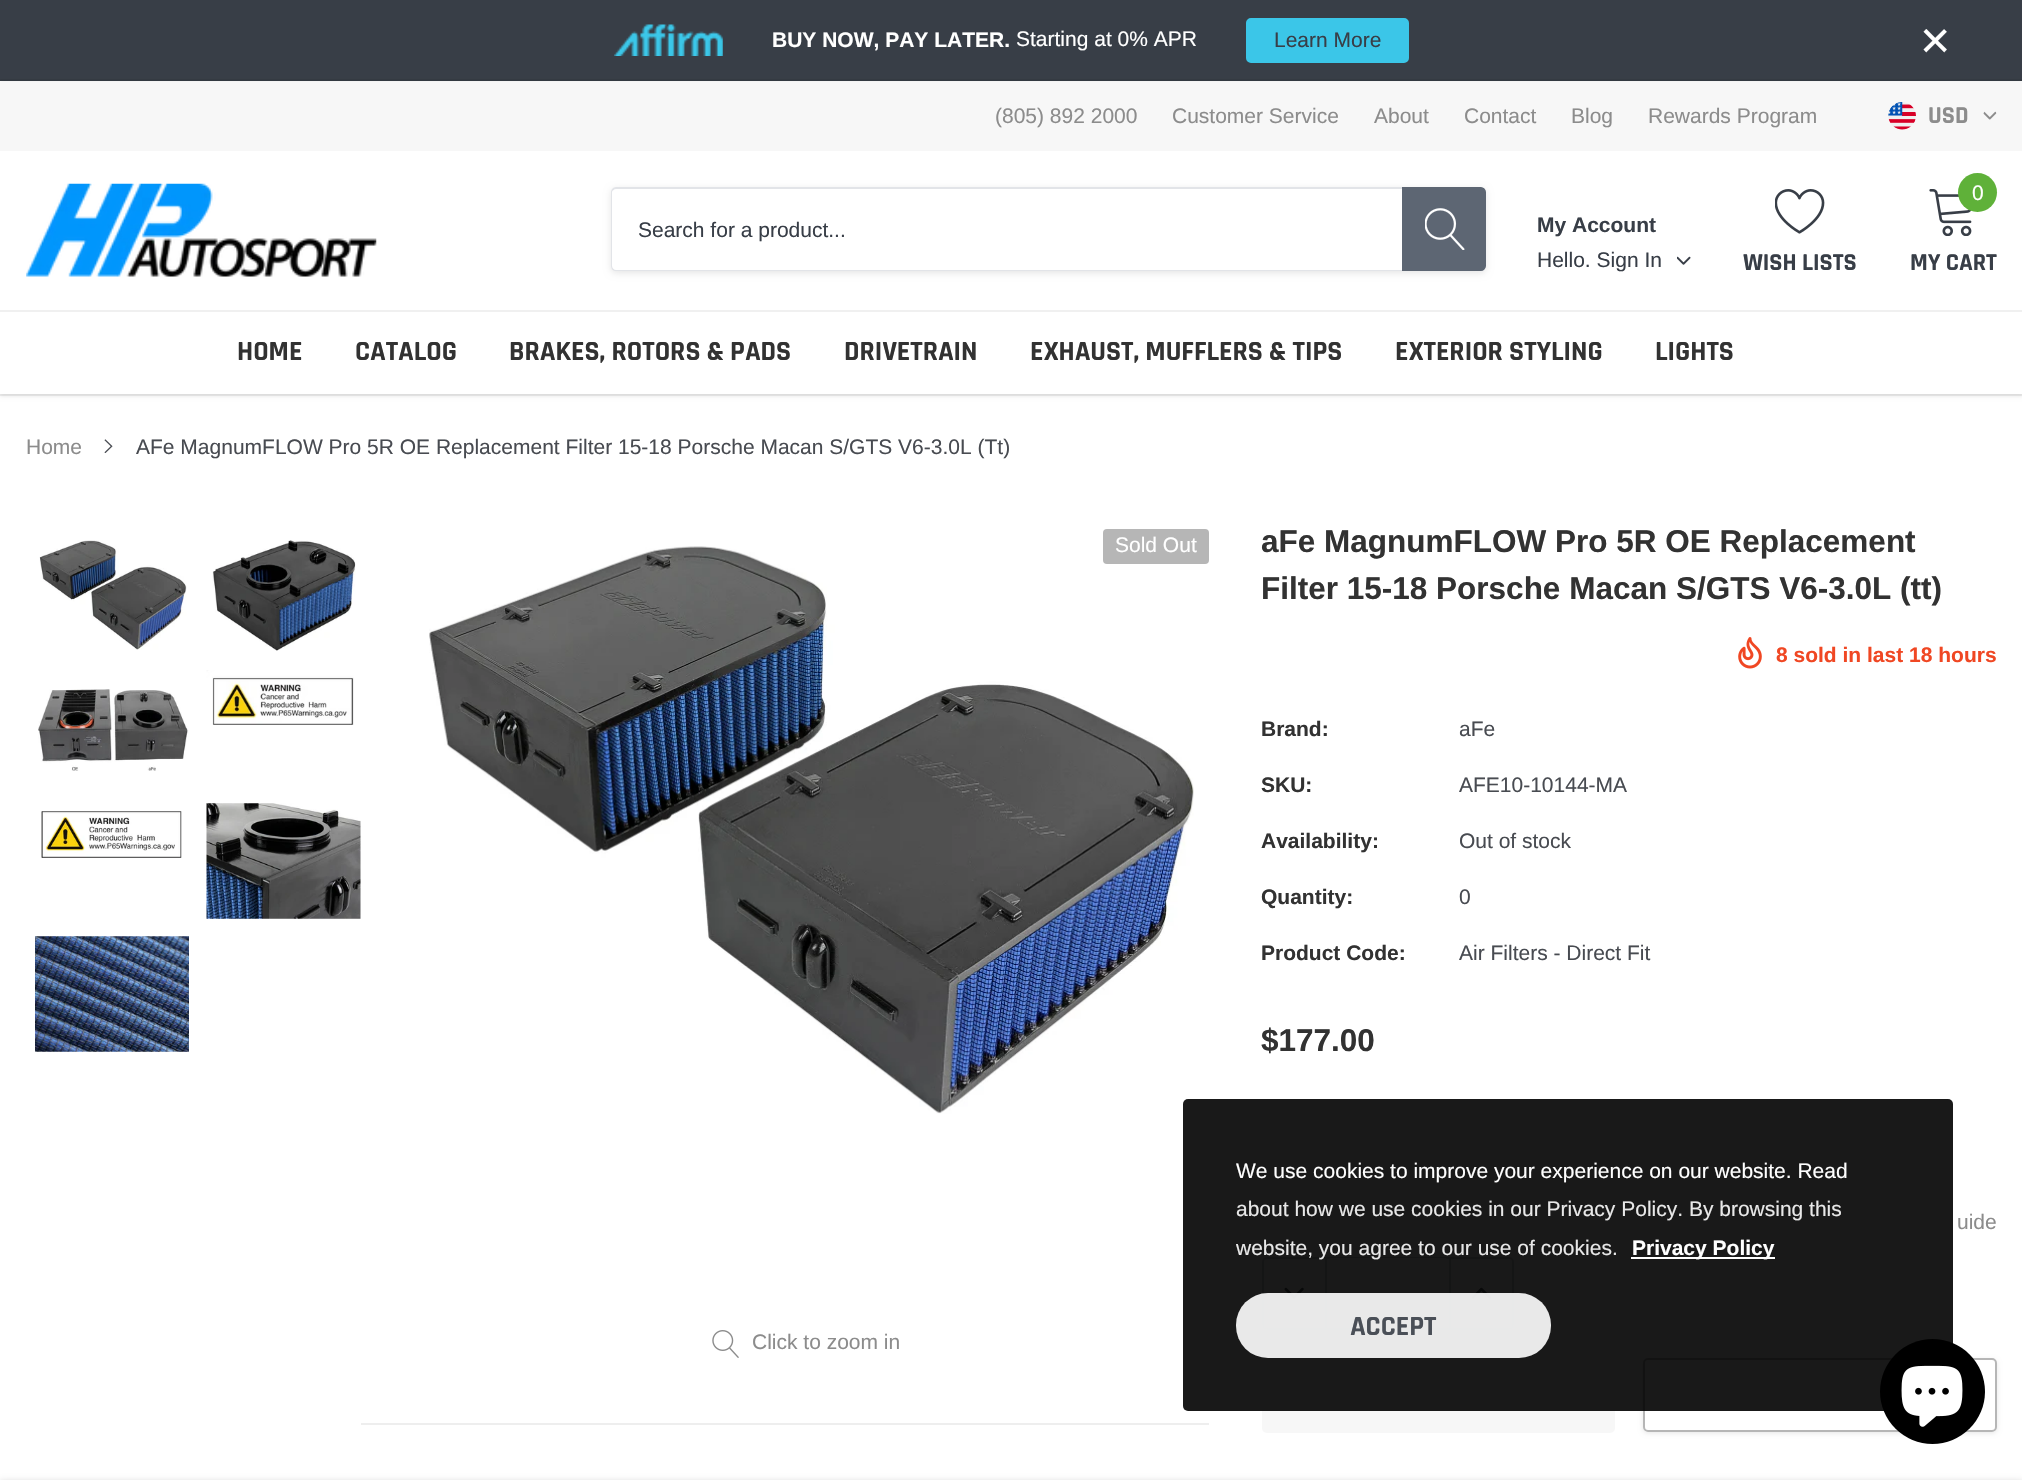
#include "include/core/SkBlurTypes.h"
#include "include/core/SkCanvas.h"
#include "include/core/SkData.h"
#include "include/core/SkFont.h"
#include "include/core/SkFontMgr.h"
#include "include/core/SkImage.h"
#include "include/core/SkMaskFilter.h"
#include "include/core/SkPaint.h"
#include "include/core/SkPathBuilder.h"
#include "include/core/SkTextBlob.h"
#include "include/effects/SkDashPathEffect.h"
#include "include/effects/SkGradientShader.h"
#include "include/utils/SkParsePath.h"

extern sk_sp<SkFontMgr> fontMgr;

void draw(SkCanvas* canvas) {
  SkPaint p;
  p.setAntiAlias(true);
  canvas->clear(SK_ColorWHITE);
  p.setColor(SkColorSetRGB(56, 62, 71));
  canvas->drawRect(SkRect::MakeLTRB(0, 0, 2022, 81), p);
  canvas->drawImageRect(SkImages::DeferredFromEncodedData(SkData::MakeFromFileName("images/1.png")), SkRect::MakeLTRB(614, 24, 723, 56), SkSamplingOptions());
  p.setColor(SkColorSetRGB(59, 198, 232));
  canvas->drawRoundRect(SkRect::MakeLTRB(1247, 19, 1408, 62), 4, 4, p);
  p.setStyle(SkPaint::kStroke_Style);
  p.setStrokeWidth(2);
  canvas->drawRoundRect(SkRect::MakeLTRB(1247, 19, 1408, 62), 4, 4, p);
  p.setStyle(SkPaint::kFill_Style);
  p.setColor(SkColorSetARGB(26, 0, 0, 0));
  p.setMaskFilter(SkMaskFilter::MakeBlur(kNormal_SkBlurStyle, 2));
  canvas->drawRect(SkRect::MakeLTRB(0, 82, 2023, 396), p);
  p.setMaskFilter(nullptr);
  p.setStyle(SkPaint::kStroke_Style);
  p.setColor(SkColorSetARGB(15, 0, 0, 0));
  canvas->drawRect(SkRect::MakeLTRB(-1, 80, 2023, 395), p);
  p.setStyle(SkPaint::kFill_Style);
  p.setColor(SK_ColorWHITE);
  canvas->drawRect(SkRect::MakeLTRB(0, 151, 2022, 394), p);
  p.setColor(SkColorSetRGB(247, 247, 247));
  canvas->drawRect(SkRect::MakeLTRB(0, 82, 2022, 151), p);
  canvas->drawImageRect(SkImages::DeferredFromEncodedData(SkData::MakeFromFileName("images/2.png")), SkRect::MakeLTRB(1888, 102, 1916, 130), SkSamplingOptions());
  canvas->drawImageRect(SkImages::DeferredFromEncodedData(SkData::MakeFromFileName("images/3.png")), SkRect::MakeLTRB(1983, 111, 1997, 120), SkSamplingOptions());
  canvas->drawImageRect(SkImages::DeferredFromEncodedData(SkData::MakeFromFileName("images/4.png")), SkRect::MakeLTRB(26, 183, 377, 277), SkSamplingOptions());
  p.setColor(SkColorSetARGB(26, 0, 0, 0));
  p.setMaskFilter(SkMaskFilter::MakeBlur(kNormal_SkBlurStyle, 3.5f));
  canvas->drawRoundRect(SkRect::MakeLTRB(611, 189, 1486, 273), 5, 5, p);
  p.setMaskFilter(nullptr);
  p.setColor(SK_ColorWHITE);
  canvas->drawRoundRect(SkRect::MakeLTRB(611, 187, 1486, 271), 5, 5, p);
  p.setColor(SkColorSetRGB(226, 228, 232));
  canvas->drawPath(SkPathBuilder(SkPathFillType::kEvenOdd).moveTo(616, 187).lineTo(1402, 187).lineTo(1402, 271).lineTo(616, 271).cubicTo(613, 271, 611, 269, 611, 266).lineTo(611, 192).cubicTo(611, 190, 613, 187, 616, 187).close().moveTo(616, 189).lineTo(1402, 189).lineTo(1402, 270).lineTo(616, 270).cubicTo(614, 270, 612, 268, 612, 266).lineTo(612, 192).cubicTo(612, 191, 614, 189, 616, 189).close().detach(), p);
  p.setColor(SkColorSetRGB(93, 102, 115));
  canvas->drawPath(SkPathBuilder().moveTo(1403, 188).lineTo(1481, 188).cubicTo(1483, 188, 1485, 190, 1485, 192).lineTo(1485, 266).cubicTo(1485, 268, 1483, 270, 1481, 270).lineTo(1403, 270).close().detach(), p);
  p.setStyle(SkPaint::kStroke_Style);
  canvas->drawPath(SkPathBuilder().moveTo(1403, 188).lineTo(1481, 188).cubicTo(1483, 188, 1485, 190, 1485, 192).lineTo(1485, 266).cubicTo(1485, 268, 1483, 270, 1481, 270).lineTo(1403, 270).close().detach(), p);
  canvas->drawImageRect(SkImages::DeferredFromEncodedData(SkData::MakeFromFileName("images/5.png")), SkRect::MakeLTRB(1425, 208, 1465, 250), SkSamplingOptions());
  canvas->drawImageRect(SkImages::DeferredFromEncodedData(SkData::MakeFromFileName("images/6.png")), SkRect::MakeLTRB(1677, 256, 1691, 265), SkSamplingOptions());
  canvas->drawImageRect(SkImages::DeferredFromEncodedData(SkData::MakeFromFileName("images/7.png")), SkRect::MakeLTRB(1929, 189, 1972, 236), SkSamplingOptions());
  p.setStyle(SkPaint::kFill_Style);
  p.setColor(SkColorSetRGB(95, 177, 57));
  canvas->drawCircle(1977.5f, 192.5f, 19.5f, p);
  canvas->drawImageRect(SkImages::DeferredFromEncodedData(SkData::MakeFromFileName("images/8.png")), SkRect::MakeLTRB(1775, 189, 1825, 234), SkSamplingOptions());
  p.setColor(SkColorSetRGB(240, 240, 240));
  canvas->drawRect(SkRect::MakeLTRB(0, 310, 2022, 312), p);
  canvas->drawImageRect(SkImages::DeferredFromEncodedData(SkData::MakeFromFileName("images/9.png")), SkRect::MakeLTRB(104, 439, 113, 453), SkSamplingOptions());
  canvas->drawImageRect(SkImages::DeferredFromEncodedData(SkData::MakeFromFileName("images/17.png")), SkRect::MakeLTRB(429, 546, 1194, 1114), SkSamplingOptions());
  p.setColor(SkColorSetRGB(182, 182, 182));
  canvas->drawRoundRect(SkRect::MakeLTRB(1103, 529, 1209, 564), 4, 4, p);
  canvas->drawImageRect(SkImages::DeferredFromEncodedData(SkData::MakeFromFileName("images/10.png")), SkRect::MakeLTRB(39, 540, 187, 650), SkSamplingOptions());
  canvas->drawImageRect(SkImages::DeferredFromEncodedData(SkData::MakeFromFileName("images/11.png")), SkRect::MakeLTRB(212, 540, 356, 651), SkSamplingOptions());
  canvas->drawImageRect(SkImages::DeferredFromEncodedData(SkData::MakeFromFileName("images/12.png")), SkRect::MakeLTRB(38, 689, 189, 771), SkSamplingOptions());
  canvas->drawImageRect(SkImages::DeferredFromEncodedData(SkData::MakeFromFileName("images/13.png")), SkRect::MakeLTRB(206, 670, 354, 725), SkSamplingOptions());
  canvas->drawImageRect(SkImages::DeferredFromEncodedData(SkData::MakeFromFileName("images/14.png")), SkRect::MakeLTRB(41, 811, 182, 858), SkSamplingOptions());
  canvas->drawImageRect(SkImages::DeferredFromEncodedData(SkData::MakeFromFileName("images/15.png")), SkRect::MakeLTRB(206, 803, 361, 919), SkSamplingOptions());
  canvas->drawImageRect(SkImages::DeferredFromEncodedData(SkData::MakeFromFileName("images/16.png")), SkRect::MakeLTRB(35, 936, 189, 1052), SkSamplingOptions());
  canvas->drawImageRect(SkImages::DeferredFromEncodedData(SkData::MakeFromFileName("images/18.png")), SkRect::MakeLTRB(712, 1330, 739, 1358), SkSamplingOptions());
  p.setColor(SkColorSetRGB(238, 238, 238));
  canvas->drawRect(SkRect::MakeLTRB(361, 1423, 1209, 1425), p);
  canvas->drawImageRect(SkImages::DeferredFromEncodedData(SkData::MakeFromFileName("images/19.png")), SkRect::MakeLTRB(1738, 637, 1762, 669), SkSamplingOptions());
  p.setStyle(SkPaint::kStroke_Style);
  p.setColor(SkColorSetRGB(204, 207, 214));
  canvas->drawRoundRect(SkRect::MakeLTRB(1263, 1258, 1513, 1329), 4, 4, p);
  p.setStyle(SkPaint::kFill_Style);
  canvas->drawRect(SkRect::MakeLTRB(1325, 1258, 1327, 1328), p);
  canvas->drawImageRect(SkImages::DeferredFromEncodedData(SkData::MakeFromFileName("images/20.png")), SkRect::MakeLTRB(1284, 1287, 1304, 1299), SkSamplingOptions());
  p.setColor(SK_ColorWHITE);
  canvas->drawRoundRect(SkRect::MakeLTRB(1327, 1258, 1449, 1328), 5, 5, p);
  p.setColor(SkColorSetRGB(204, 207, 214));
  canvas->drawRect(SkRect::MakeLTRB(1449, 1258, 1451, 1328), p);
  canvas->drawImageRect(SkImages::DeferredFromEncodedData(SkData::MakeFromFileName("images/21.png")), SkRect::MakeLTRB(1471, 1287, 1491, 1299), SkSamplingOptions());
  p.setColor(SkColorSetRGB(247, 247, 247));
  canvas->drawRoundRect(SkRect::MakeLTRB(1262, 1356, 1615, 1433), 5, 5, p);
  canvas->save();
  canvas->clipPath(SkPathBuilder(SkPathFillType::kEvenOdd).moveTo(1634, 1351).lineTo(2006, 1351).lineTo(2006, 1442).lineTo(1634, 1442).close().moveTo(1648, 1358).lineTo(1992, 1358).cubicTo(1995, 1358, 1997, 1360, 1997, 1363).lineTo(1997, 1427).cubicTo(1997, 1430, 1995, 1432, 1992, 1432).lineTo(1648, 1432).cubicTo(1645, 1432, 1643, 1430, 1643, 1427).lineTo(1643, 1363).cubicTo(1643, 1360, 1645, 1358, 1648, 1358).close().detach(), true);
  p.setColor(SkColorSetARGB(26, 0, 0, 0));
  p.setMaskFilter(SkMaskFilter::MakeBlur(kNormal_SkBlurStyle, 2.5f));
  canvas->drawRoundRect(SkRect::MakeLTRB(1643, 1360, 1997, 1433), 5, 5, p);
  p.setMaskFilter(nullptr);
  canvas->restore();
  p.setStyle(SkPaint::kStroke_Style);
  p.setColor(SkColorSetRGB(182, 182, 182));
  canvas->drawRoundRect(SkRect::MakeLTRB(1644, 1359, 1996, 1431), 4, 4, p);
  p.setStyle(SkPaint::kFill_Style);
  p.setColor(SkColorSetARGB(51, 0, 0, 0));
  p.setMaskFilter(SkMaskFilter::MakeBlur(kNormal_SkBlurStyle, 3.5f));
  canvas->drawRect(SkRect::MakeLTRB(0, 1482, 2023, 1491), p);
  p.setMaskFilter(nullptr);
  p.setColor(SkColorSetARGB(230, 0, 0, 0));
  canvas->drawRoundRect(SkRect::MakeLTRB(1183, 1099, 1953, 1411), 5, 5, p);
  p.setColor(SK_ColorWHITE);
  canvas->drawRect(SkRect::MakeLTRB(1631, 1257, 1775, 1259), p);
  p.setColor(SkColorSetARGB(230, 255, 255, 255));
  canvas->drawRoundRect(SkRect::MakeLTRB(1236, 1293, 1551, 1358), 32, 32, p);
  p.setColor(SK_ColorBLACK);
  canvas->drawCircle(1932.5f, 1391.5f, 52.5f, p);
  canvas->drawImageRect(SkImages::DeferredFromEncodedData(SkData::MakeFromFileName("images/22.png")), SkRect::MakeLTRB(1901, 1365, 1963, 1427), SkSamplingOptions());
  SkFont font1(fontMgr->matchFamilyStyle("Arimo", SkFontStyle::Bold()), 21);
  font1.setSubpixel(true);
  p.setColor(SK_ColorWHITE);
  canvas->drawString("BUY NOW, PAY LATER.", 772, 47, font1, p);
  SkFont font2(fontMgr->matchFamilyStyle("Arimo", SkFontStyle::Normal()), 21);
  font2.setSubpixel(true);
  canvas->drawString("Starting at 0% APR", 1016, 46, font2, p);
  p.setColor(SkColorSetRGB(56, 62, 71));
  canvas->drawString("Learn More", 1274, 47, font2, p);
  SkFont font3(fontMgr->matchFamilyStyle("Arimo", SkFontStyle::Normal()), 52);
  font3.setSubpixel(true);
  p.setColor(SK_ColorWHITE);
  canvas->drawString("×", 1920, 58, font3, p);
  p.setColor(SkColorSetRGB(140, 140, 140));
  canvas->drawString("(805) 892 2000", 995, 123, font2, p);
  canvas->drawString("Customer Service", 1172, 123, font2, p);
  canvas->drawString("About", 1374, 123, font2, p);
  canvas->drawString("Contact", 1464, 123, font2, p);
  canvas->drawString("Blog", 1571, 123, font2, p);
  canvas->drawString("Rewards Program", 1648, 123, font2, p);
  SkFont font4(fontMgr->matchFamilyStyle("Rajdhani", SkFontStyle::Bold()), 24.5f);
  font4.setSubpixel(true);
  canvas->drawString("USD", 1928, 123, font4, p);
  p.setColor(SkColorSetRGB(56, 62, 71));
  canvas->drawString("Search for a product...", 638, 237, font2, p);
  canvas->drawString("My Account", 1537, 232, font1, p);
  canvas->drawString("Hello. Sign In", 1537, 267, font2, p);
  p.setColor(SK_ColorWHITE);
  canvas->drawString("0", 1972, 200, font2, p);
  p.setColor(SkColorSetRGB(56, 62, 71));
  canvas->drawString("MY CART", 1910, 270, font4, p);
  canvas->drawString("WISH LISTS", 1743, 270, font4, p);
  SkFont font5(fontMgr->matchFamilyStyle("Rajdhani", SkFontStyle::Bold()), 28);
  font5.setSubpixel(true);
  p.setColor(SkColorSetRGB(50, 50, 50));
  canvas->drawString("HOME", 237, 360, font5, p);
  canvas->drawString("CATALOG", 355, 360, font5, p);
  canvas->drawString("BRAKES, ROTORS & PADS", 509, 360, font5, p);
  canvas->drawString("DRIVETRAIN", 844, 360, font5, p);
  canvas->drawString("EXHAUST, MUFFLERS & TIPS", 1030, 360, font5, p);
  canvas->drawString("EXTERIOR STYLING", 1395, 360, font5, p);
  canvas->drawString("LIGHTS", 1655, 360, font5, p);
  p.setColor(SkColorSetRGB(140, 140, 140));
  canvas->drawString("Home", 26, 454, font2, p);
  p.setColor(SkColorSetRGB(72, 75, 81));
  canvas->drawString("AFe MagnumFLOW Pro 5R OE Replacement Filter 15-18 Porsche Macan S/GTS V6-3.0L (Tt)", 136, 454, font2, p);
  p.setColor(SK_ColorWHITE);
  canvas->drawString("Sold Out", 1115, 552, font2, p);
  p.setColor(SkColorSetRGB(140, 140, 140));
  canvas->drawString("Click to zoom in", 752, 1349, font2, p);
  SkFont font6(fontMgr->matchFamilyStyle("Arimo", SkFontStyle::Bold()), 31.5f);
  font6.setSubpixel(true);
  p.setColor(SkColorSetRGB(50, 50, 50));
  canvas->drawString("aFe MagnumFLOW Pro 5R OE Replacement", 1261, 552, font6, p);
  canvas->drawString("Filter 15-18 Porsche Macan S/GTS V6-3.0L (tt)", 1261, 599, font6, p);
  p.setColor(SkColorSetRGB(240, 71, 35));
  canvas->drawString("8 sold in last 18 hours", 1776, 662, font1, p);
  p.setColor(SkColorSetRGB(50, 50, 50));
  canvas->drawString("Brand:", 1261, 736, font1, p);
  p.setColor(SkColorSetRGB(72, 75, 81));
  canvas->drawString("aFe", 1459, 736, font2, p);
  p.setColor(SkColorSetRGB(50, 50, 50));
  canvas->drawString("SKU:", 1261, 792, font1, p);
  p.setColor(SkColorSetRGB(72, 75, 81));
  canvas->drawString("AFE10-10144-MA", 1459, 792, font2, p);
  p.setColor(SkColorSetRGB(50, 50, 50));
  canvas->drawString("Availability:", 1261, 848, font1, p);
  p.setColor(SkColorSetRGB(72, 75, 81));
  canvas->drawString("Out of stock", 1459, 848, font2, p);
  p.setColor(SkColorSetRGB(50, 50, 50));
  canvas->drawString("Quantity:", 1261, 904, font1, p);
  p.setColor(SkColorSetRGB(72, 75, 81));
  canvas->drawString("0", 1459, 904, font2, p);
  p.setColor(SkColorSetRGB(50, 50, 50));
  canvas->drawString("Product Code:", 1261, 960, font1, p);
  p.setColor(SkColorSetRGB(72, 75, 81));
  canvas->drawString("Air Filters - Direct Fit", 1459, 960, font2, p);
  p.setColor(SkColorSetRGB(50, 50, 50));
  canvas->drawString("$177.00", 1261, 1051, font6, p);
  p.setColor(SkColorSetRGB(140, 140, 140));
  canvas->drawString("uide", 1957, 1229, font2, p);
  p.setColor(SK_ColorWHITE);
  canvas->drawString("We use cookies to improve your experience on our website. Read", 1236, 1178, font2, p);
  p.setColor(SkColorSetRGB(232, 232, 232));
  canvas->drawString("about how we use cookies in our Privacy Policy. By browsing this", 1236, 1216, font2, p);
  canvas->drawString("website, you agree to our use of cookies.", 1236, 1255, font2, p);
  p.setColor(SK_ColorWHITE);
  canvas->drawString("Privacy Policy", 1632, 1255, font1, p);
  p.setColor(SkColorSetRGB(74, 79, 87));
  canvas->drawString("ACCEPT", 1350, 1335, font5, p);
}
